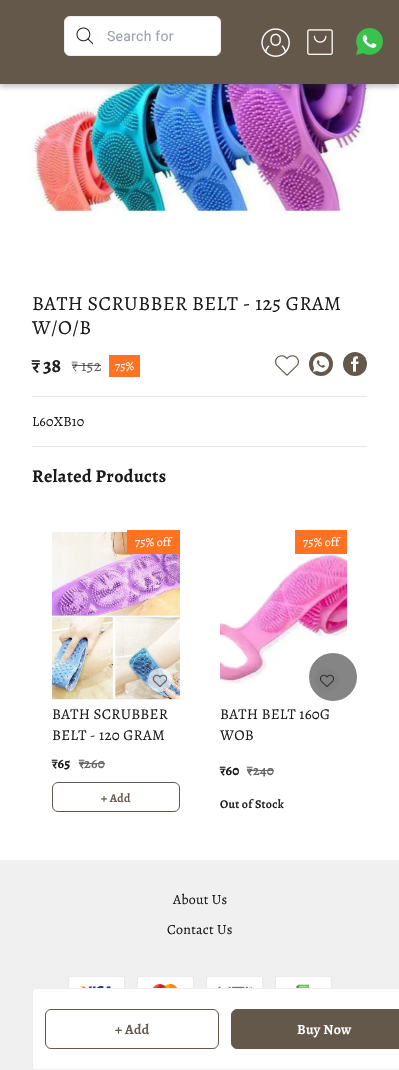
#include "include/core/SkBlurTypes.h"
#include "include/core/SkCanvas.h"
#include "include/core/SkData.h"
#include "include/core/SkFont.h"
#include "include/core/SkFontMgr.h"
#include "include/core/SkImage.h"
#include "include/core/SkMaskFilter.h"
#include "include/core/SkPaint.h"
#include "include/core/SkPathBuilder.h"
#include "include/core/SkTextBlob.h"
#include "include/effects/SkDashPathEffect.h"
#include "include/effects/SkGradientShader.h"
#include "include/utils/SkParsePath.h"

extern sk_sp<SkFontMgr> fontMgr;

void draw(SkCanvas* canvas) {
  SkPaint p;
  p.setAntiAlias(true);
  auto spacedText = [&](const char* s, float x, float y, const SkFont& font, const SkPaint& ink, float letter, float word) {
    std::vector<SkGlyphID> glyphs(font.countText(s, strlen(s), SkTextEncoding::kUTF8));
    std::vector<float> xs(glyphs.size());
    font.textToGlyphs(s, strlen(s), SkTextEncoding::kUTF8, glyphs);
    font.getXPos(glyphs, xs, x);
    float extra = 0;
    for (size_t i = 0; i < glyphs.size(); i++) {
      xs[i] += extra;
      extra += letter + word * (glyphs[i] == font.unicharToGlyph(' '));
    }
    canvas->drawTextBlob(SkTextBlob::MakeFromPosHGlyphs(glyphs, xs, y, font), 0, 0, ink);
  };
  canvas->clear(SK_ColorWHITE);
  canvas->drawImageRect(SkImages::DeferredFromEncodedData(SkData::MakeFromFileName("images/5.png")), SkRect::MakeLTRB(22, 84, 374, 216), SkSamplingOptions());
  p.setColor(SkColorSetARGB(77, 57, 63, 72));
  p.setMaskFilter(SkMaskFilter::MakeBlur(kNormal_SkBlurStyle, 2.5f));
  canvas->drawRect(SkRect::MakeLTRB(0, 3, 399, 87), p);
  p.setMaskFilter(nullptr);
  p.setColor(SkColorSetRGB(100, 88, 75));
  canvas->drawRect(SkRect::MakeLTRB(0, 0, 399, 84), p);
  p.setColor(SK_ColorWHITE);
  canvas->drawRoundRect(SkRect::MakeLTRB(64.5f, 16.5f, 220.5f, 55.5f), 5.5f, 5.5f, p);
  p.setStyle(SkPaint::kStroke_Style);
  p.setStrokeWidth(1);
  p.setColor(SkColorSetRGB(238, 238, 238));
  canvas->drawRoundRect(SkRect::MakeLTRB(64.5f, 16.5f, 220.5f, 55.5f), 5.5f, 5.5f, p);
  canvas->drawImageRect(SkImages::DeferredFromEncodedData(SkData::MakeFromFileName("images/1.png")), SkRect::MakeLTRB(76, 27, 93, 45), SkSamplingOptions());
  canvas->drawImageRect(SkImages::DeferredFromEncodedData(SkData::MakeFromFileName("images/2.png")), SkRect::MakeLTRB(261, 28, 290, 57), SkSamplingOptions());
  canvas->drawImageRect(SkImages::DeferredFromEncodedData(SkData::MakeFromFileName("images/3.png")), SkRect::MakeLTRB(307, 29, 333, 55), SkSamplingOptions());
  canvas->drawImageRect(SkImages::DeferredFromEncodedData(SkData::MakeFromFileName("images/4.png")), SkRect::MakeLTRB(356, 28, 383, 55), SkSamplingOptions());
  p.setStyle(SkPaint::kFill_Style);
  p.setColor(SkColorSetRGB(255, 114, 34));
  canvas->drawRect(SkRect::MakeLTRB(109, 355, 140, 377), p);
  canvas->drawImageRect(SkImages::DeferredFromEncodedData(SkData::MakeFromFileName("images/6.png")), SkRect::MakeLTRB(275, 355, 299, 376), SkSamplingOptions());
  p.setColor(SkColorSetRGB(100, 88, 75));
  canvas->drawCircle(321, 364, 12, p);
  canvas->drawImageRect(SkImages::DeferredFromEncodedData(SkData::MakeFromFileName("images/7.png")), SkRect::MakeLTRB(313, 356, 329, 372), SkSamplingOptions());
  canvas->drawCircle(355, 364, 12, p);
  canvas->drawImageRect(SkImages::DeferredFromEncodedData(SkData::MakeFromFileName("images/8.png")), SkRect::MakeLTRB(351, 356, 359, 372), SkSamplingOptions());
  p.setColor(SkColorSetRGB(232, 232, 232));
  canvas->drawRect(SkRect::MakeLTRB(32, 396, 367, 397), p);
  canvas->drawRect(SkRect::MakeLTRB(32, 446, 367, 447), p);
  p.setColor(SkColorSetRGB(240, 240, 240));
  canvas->drawRect(SkRect::MakeLTRB(0, 860, 399, 1070), p);
  p.setColor(SK_ColorWHITE);
  canvas->drawPath(SkPathBuilder().moveTo(36, 988.5f).lineTo(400, 988.5f).cubicTo(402, 988.5f, 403.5f, 990, 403.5f, 992).lineTo(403.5f, 1069.5f).lineTo(32.5f, 1069.5f).lineTo(32.5f, 992).cubicTo(32.5f, 990, 34, 988.5f, 36, 988.5f).close().detach(), p);
  p.setStyle(SkPaint::kStroke_Style);
  p.setColor(SkColorSetRGB(238, 238, 238));
  canvas->drawPath(SkPathBuilder().moveTo(36, 988.5f).lineTo(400, 988.5f).cubicTo(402, 988.5f, 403.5f, 990, 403.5f, 992).lineTo(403.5f, 1069.5f).lineTo(32.5f, 1069.5f).lineTo(32.5f, 992).cubicTo(32.5f, 990, 34, 988.5f, 36, 988.5f).close().detach(), p);
  p.setColor(SkColorSetRGB(100, 88, 75));
  canvas->drawRoundRect(SkRect::MakeLTRB(45.5f, 1009.5f, 218.5f, 1048.5f), 5.5f, 5.5f, p);
  p.setStyle(SkPaint::kFill_Style);
  canvas->drawRoundRect(SkRect::MakeLTRB(231.5f, 1009.5f, 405.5f, 1048.5f), 5.5f, 5.5f, p);
  p.setStyle(SkPaint::kStroke_Style);
  canvas->drawRoundRect(SkRect::MakeLTRB(231.5f, 1009.5f, 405.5f, 1048.5f), 5.5f, 5.5f, p);
  canvas->drawImageRect(SkImages::DeferredFromEncodedData(SkData::MakeFromFileName("images/9.png")), SkRect::MakeLTRB(52, 530, 180, 700), SkSamplingOptions());
  p.setStyle(SkPaint::kFill_Style);
  p.setColor(SkColorSetRGB(255, 114, 34));
  canvas->drawRect(SkRect::MakeLTRB(127, 530, 180, 554), p);
  p.setColor(SkColorSetARGB(184, 246, 246, 246));
  canvas->drawCircle(160, 680, 12, p);
  canvas->drawImageRect(SkImages::DeferredFromEncodedData(SkData::MakeFromFileName("images/10.png")), SkRect::MakeLTRB(152, 674, 167, 687), SkSamplingOptions());
  p.setColor(SkColorSetRGB(102, 102, 102));
  canvas->drawRect(SkRect::MakeLTRB(79, 763, 84, 764), p);
  canvas->drawRect(SkRect::MakeLTRB(84, 763, 105, 764), p);
  p.setStyle(SkPaint::kStroke_Style);
  p.setColor(SkColorSetRGB(100, 88, 75));
  canvas->drawRoundRect(SkRect::MakeLTRB(52.5f, 782.5f, 179.5f, 811.5f), 5.5f, 5.5f, p);
  canvas->drawImageRect(SkImages::DeferredFromEncodedData(SkData::MakeFromFileName("images/11.png")), SkRect::MakeLTRB(220, 553, 347, 684), SkSamplingOptions());
  p.setStyle(SkPaint::kFill_Style);
  p.setColor(SkColorSetRGB(255, 114, 34));
  canvas->drawRect(SkRect::MakeLTRB(295, 530, 347, 554), p);
  p.setColor(SkColorSetRGB(248, 248, 248));
  canvas->drawCircle(327, 680, 12, p);
  canvas->drawImageRect(SkImages::DeferredFromEncodedData(SkData::MakeFromFileName("images/12.png")), SkRect::MakeLTRB(320, 674, 334, 687), SkSamplingOptions());
  p.setColor(SkColorSetRGB(102, 102, 102));
  canvas->drawRect(SkRect::MakeLTRB(247, 770, 253, 771), p);
  canvas->drawRect(SkRect::MakeLTRB(253, 770, 274, 771), p);
  p.setColor(SkColorSetARGB(122, 0, 0, 0));
  canvas->drawCircle(333, 677, 24, p);
  canvas->drawImageRect(SkImages::DeferredFromEncodedData(SkData::MakeFromFileName("images/13.png")), SkRect::MakeLTRB(68, 976, 332, 988), SkSamplingOptions());
  SkFont font1(fontMgr->matchFamilyStyle("Roboto", SkFontStyle::Normal()), 14);
  font1.setSubpixel(true);
  p.setColor(SkColorSetRGB(156, 163, 175));
  spacedText("Search for", 107, 41, font1, p, 0.25f, 0);
  SkFont font2(fontMgr->matchFamilyStyle("Alegreya", SkFontStyle::Normal()), 20);
  font2.setSubpixel(true);
  p.setColor(SkColorSetRGB(26, 26, 26));
  spacedText("BATH SCRUBBER BELT - 125 GRAM", 32, 310, font2, p, 0.4f, 0);
  spacedText("W/O/B", 32, 334, font2, p, 0.4f, 0);
  SkFont font3(fontMgr->matchFamilyStyle("Alegreya", SkFontStyle::Bold()), 20);
  font3.setSubpixel(true);
  p.setColor(SkColorSetRGB(33, 33, 33));
  canvas->drawString("₹ 38", 32, 372, font3, p);
  SkFont font4(fontMgr->matchFamilyStyle("Alegreya", SkFontStyle::Normal()), 16);
  font4.setSubpixel(true);
  p.setColor(SkColorSetRGB(102, 102, 102));
  spacedText("₹ 152", 72, 371, font4, p, 0.25f, 0);
  p.setColor(SkColorSetARGB(153, 0, 0, 0));
  canvas->drawRect(SkRect::MakeLTRB(72, 365, 101, 366), p);
  SkFont font5(fontMgr->matchFamilyStyle("Alegreya", SkFontStyle::Normal()), 12);
  font5.setSubpixel(true);
  p.setColor(SK_ColorWHITE);
  spacedText("75%", 115, 370, font5, p, 0.25f, 0);
  SkFont font6(fontMgr->matchFamilyStyle("Alegreya", SkFontStyle::Normal()), 14);
  font6.setSubpixel(true);
  p.setColor(SkColorSetRGB(26, 26, 26));
  spacedText("L60XB10", 32, 426, font6, p, 0.25f, 0);
  SkFont font7(fontMgr->matchFamilyStyle("Alegreya", SkFontStyle(600, SkFontStyle::kNormal_Width, SkFontStyle::kUpright_Slant)), 14);
  font7.setSubpixel(true);
  p.setColor(SkColorSetRGB(100, 88, 75));
  spacedText("+ Add", 115, 1034, font7, p, 0.25f, 0);
  p.setColor(SK_ColorWHITE);
  spacedText("Buy Now", 297, 1034, font7, p, 0.25f, 0);
  SkFont font8(fontMgr->matchFamilyStyle("Alegreya", SkFontStyle::Bold()), 18);
  font8.setSubpixel(true);
  p.setColor(SkColorSetRGB(26, 26, 26));
  spacedText("Related Products", 32, 482, font8, p, 0.4f, 0);
  p.setColor(SK_ColorWHITE);
  spacedText("75% off", 135, 546, font5, p, 0.25f, 0);
  SkFont font9(fontMgr->matchFamilyStyle("Alegreya", SkFontStyle::Normal()), 15);
  font9.setSubpixel(true);
  p.setColor(SkColorSetRGB(26, 26, 26));
  spacedText("BATH SCRUBBER", 52, 719, font9, p, 0.25f, 0);
  spacedText("BELT - 120 GRAM", 52, 740, font9, p, 0.25f, 0);
  SkFont font10(fontMgr->matchFamilyStyle("Alegreya", SkFontStyle::Bold()), 14);
  font10.setSubpixel(true);
  spacedText("₹65", 52, 768, font10, p, 0.25f, 0);
  p.setColor(SkColorSetRGB(102, 102, 102));
  spacedText("₹", 79, 768, font10, p, 0.25f, 0);
  spacedText("260", 84, 768, font7, p, 0.25f, 0);
  SkFont font11(fontMgr->matchFamilyStyle("Alegreya", SkFontStyle(600, SkFontStyle::kNormal_Width, SkFontStyle::kUpright_Slant)), 12);
  font11.setSubpixel(true);
  p.setColor(SkColorSetRGB(100, 88, 75));
  spacedText("+ Add", 101, 802, font11, p, 0.25f, 0);
  p.setColor(SK_ColorWHITE);
  spacedText("75% off", 303, 546, font5, p, 0.25f, 0);
  p.setColor(SkColorSetRGB(26, 26, 26));
  spacedText("BATH BELT 160G", 220, 719, font9, p, 0.25f, 0);
  spacedText("WOB", 220, 740, font9, p, 0.25f, 0);
  spacedText("₹60", 220, 775, font10, p, 0.25f, 0);
  p.setColor(SkColorSetRGB(102, 102, 102));
  spacedText("₹", 247, 775, font10, p, 0.25f, 0);
  spacedText("240", 253, 775, font7, p, 0.25f, 0);
  p.setColor(SkColorSetRGB(33, 33, 33));
  spacedText("Out of Stock", 220, 808, font11, p, 0.25f, 0);
  p.setColor(SkColorSetRGB(26, 26, 26));
  spacedText("About Us", 173, 904, font6, p, 0.25f, 0);
  spacedText("Contact Us", 167, 934, font6, p, 0.25f, 0);
}
